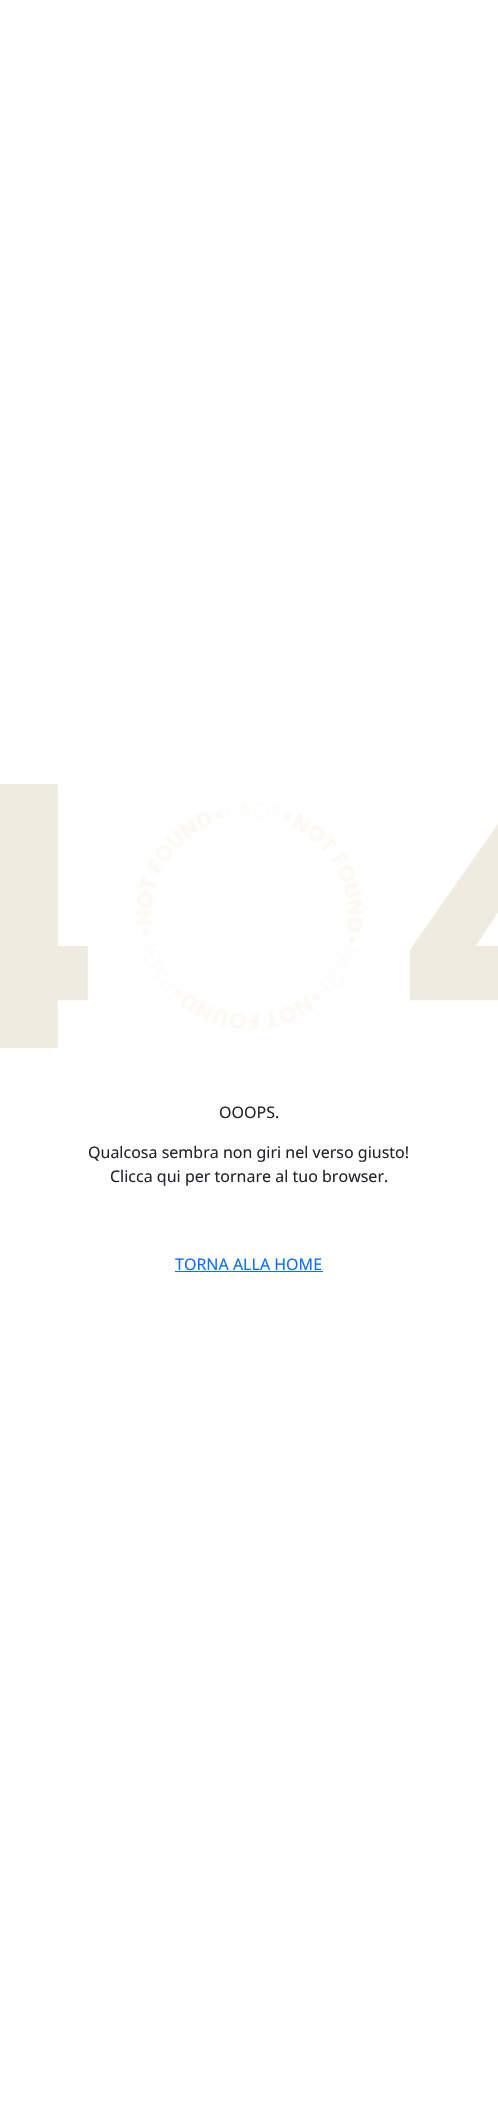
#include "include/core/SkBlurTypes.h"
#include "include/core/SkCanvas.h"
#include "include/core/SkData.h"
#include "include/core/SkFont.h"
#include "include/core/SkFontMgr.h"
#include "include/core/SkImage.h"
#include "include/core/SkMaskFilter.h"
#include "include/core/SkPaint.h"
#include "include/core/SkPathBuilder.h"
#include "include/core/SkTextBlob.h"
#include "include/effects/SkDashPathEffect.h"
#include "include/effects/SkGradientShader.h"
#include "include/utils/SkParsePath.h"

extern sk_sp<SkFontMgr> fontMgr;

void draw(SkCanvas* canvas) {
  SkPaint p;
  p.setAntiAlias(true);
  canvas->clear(SK_ColorWHITE);
  canvas->drawImageRect(SkImages::DeferredFromEncodedData(SkData::MakeFromFileName("images/1.png")), SkRect::MakeLTRB(0, 784, 498, 1048), SkSamplingOptions());
  p.setColor(SkColorSetRGB(13, 110, 253));
  canvas->drawRect(SkRect::MakeLTRB(175, 1271, 323, 1272), p);
  SkFont font1(fontMgr->matchFamilyStyle("Noto Sans", SkFontStyle::Normal()), 16);
  font1.setSubpixel(true);
  p.setColor(SkColorSetRGB(33, 37, 41));
  canvas->drawString("OOOPS.", 219, 1118, font1, p);
  canvas->drawString("Qualcosa sembra non giri nel verso giusto!", 88, 1158, font1, p);
  canvas->drawString("Clicca qui per tornare al tuo browser.", 110, 1182, font1, p);
  p.setColor(SkColorSetRGB(13, 110, 253));
  canvas->drawString("TORNA ALLA HOME", 175, 1270, font1, p);
}
